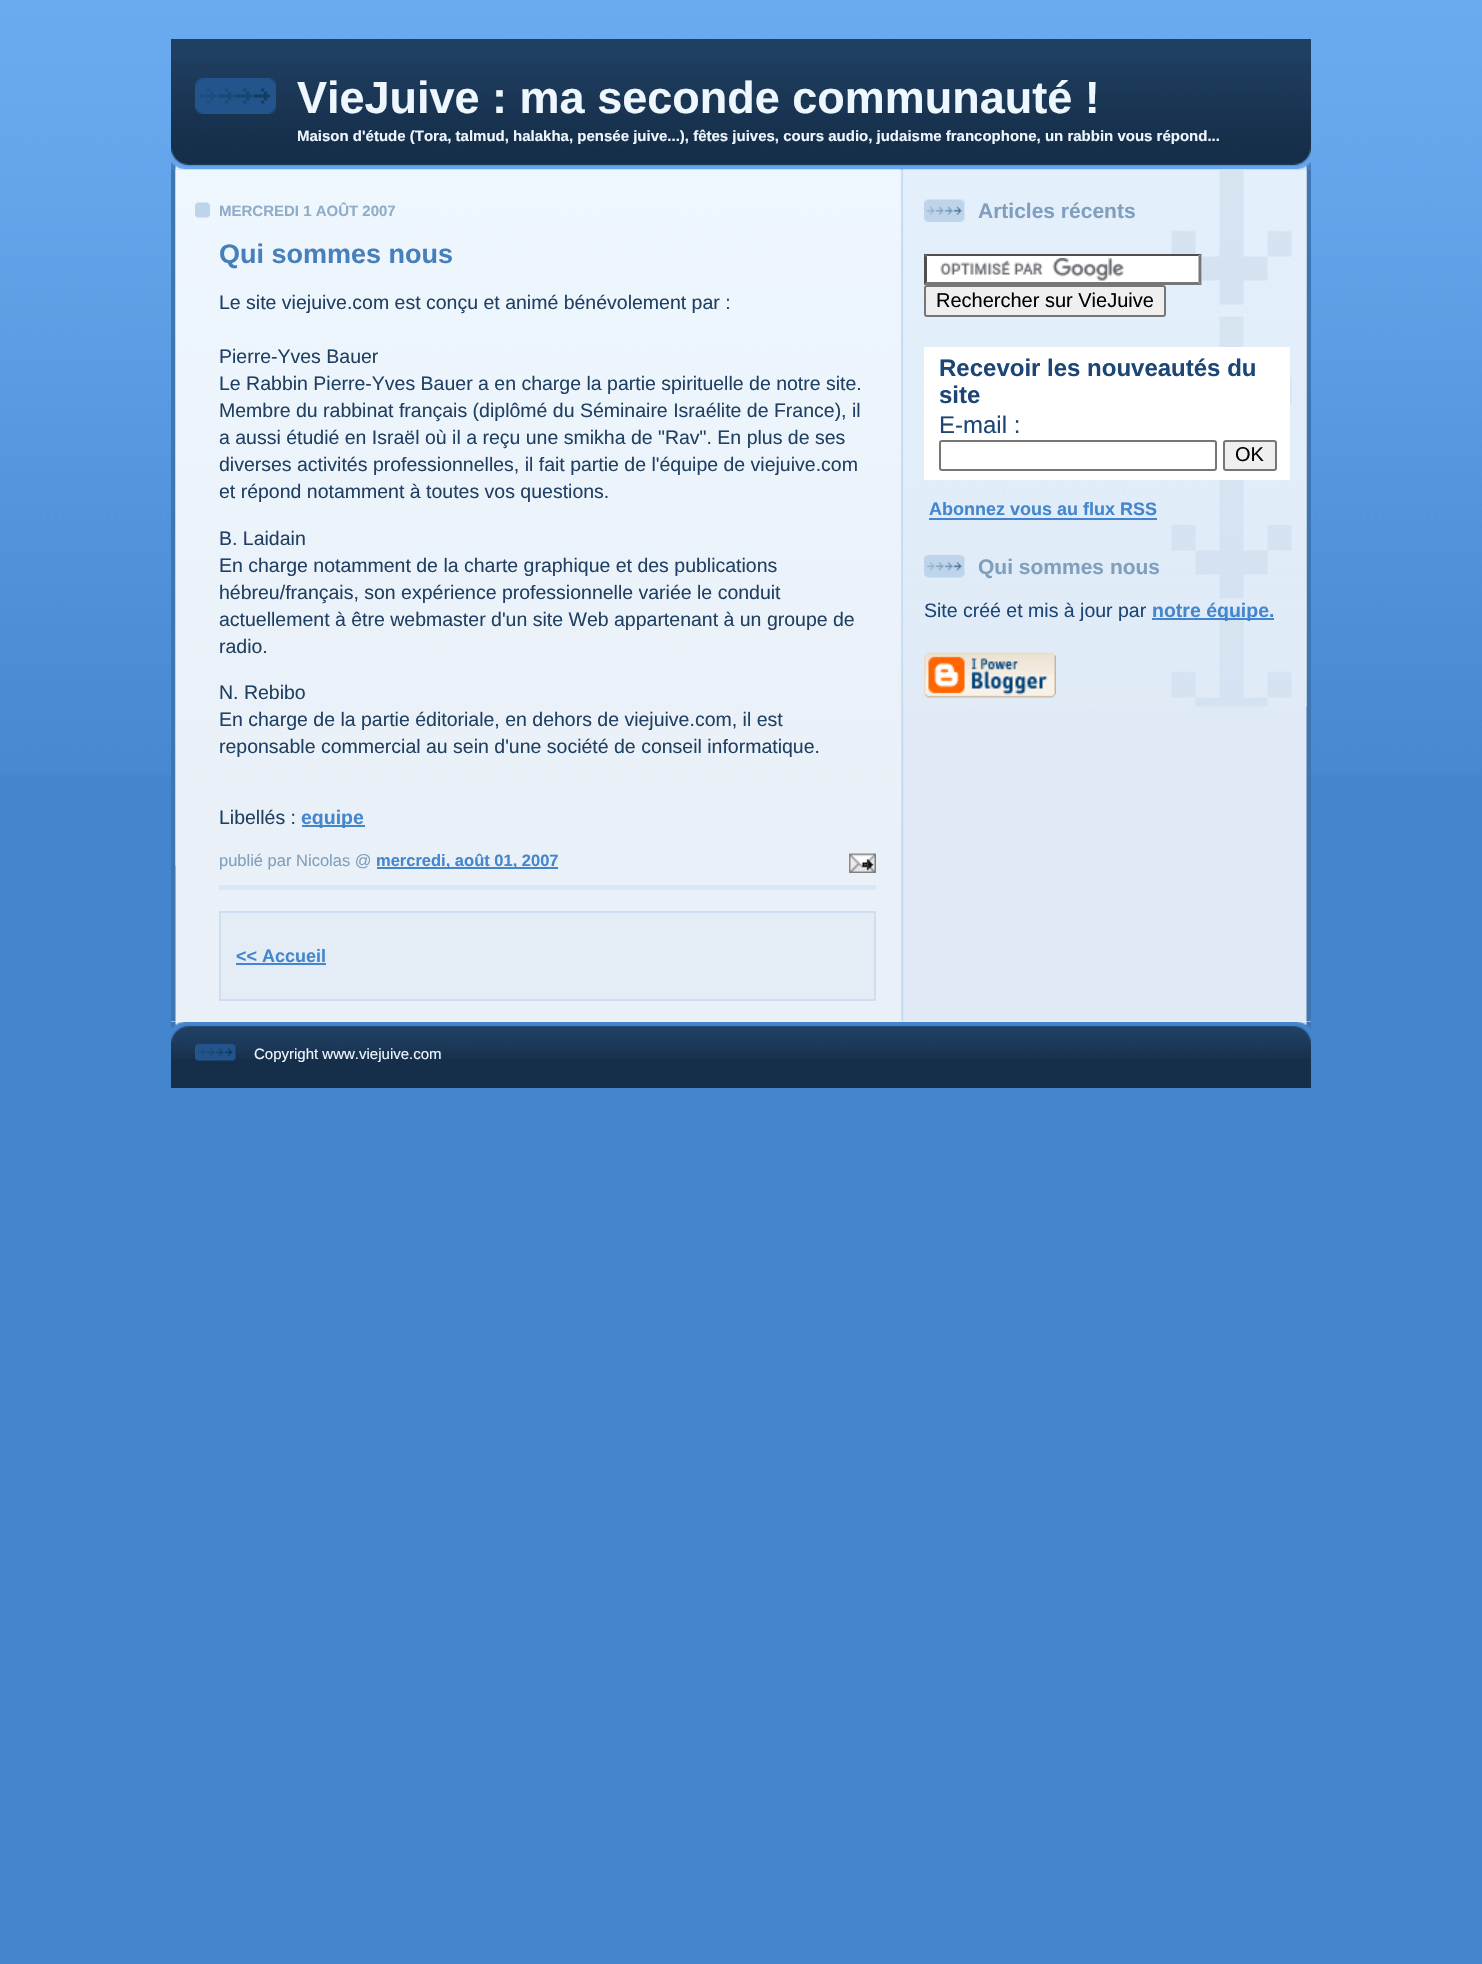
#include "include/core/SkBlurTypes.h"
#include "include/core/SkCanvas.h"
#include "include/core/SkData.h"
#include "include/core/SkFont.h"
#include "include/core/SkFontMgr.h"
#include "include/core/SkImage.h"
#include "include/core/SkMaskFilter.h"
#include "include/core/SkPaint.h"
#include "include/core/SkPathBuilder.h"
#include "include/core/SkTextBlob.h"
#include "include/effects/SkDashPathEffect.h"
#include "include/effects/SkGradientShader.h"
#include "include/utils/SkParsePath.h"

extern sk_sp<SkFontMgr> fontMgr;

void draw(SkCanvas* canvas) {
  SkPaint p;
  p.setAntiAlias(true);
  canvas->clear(SkColorSetRGB(67, 134, 206));
  canvas->drawImageRect(SkImages::DeferredFromEncodedData(SkData::MakeFromFileName("images/1.png")), SkRect::MakeLTRB(0, 0, 1482, 775), SkSamplingOptions());
  canvas->drawImageRect(SkImages::DeferredFromEncodedData(SkData::MakeFromFileName("images/2.png")), SkRect::MakeLTRB(171, 147, 1311, 170), SkSamplingOptions());
  p.setColor(SkColorSetRGB(32, 64, 99));
  canvas->drawRect(SkRect::MakeLTRB(171, 39, 1311, 59), p);
  canvas->drawImageRect(SkImages::DeferredFromEncodedData(SkData::MakeFromFileName("images/3.png")), SkRect::MakeLTRB(171, 59, 1311, 147), SkSamplingOptions());
  canvas->drawImageRect(SkImages::DeferredFromEncodedData(SkData::MakeFromFileName("images/4.png")), SkRect::MakeLTRB(195, 78, 276, 114), SkSamplingOptions());
  p.setColor(SkColorSetRGB(247, 240, 233));
  canvas->drawRect(SkRect::MakeLTRB(171, 1021, 1311, 1022), p);
  canvas->drawImageRect(SkImages::DeferredFromEncodedData(SkData::MakeFromFileName("images/5.png")), SkRect::MakeLTRB(171, 169, 1311, 1022), SkSamplingOptions());
  canvas->drawImageRect(SkImages::DeferredFromEncodedData(SkData::MakeFromFileName("images/6.png")), SkRect::MakeLTRB(175, 169, 900, 866), SkSamplingOptions());
  canvas->drawImageRect(SkImages::DeferredFromEncodedData(SkData::MakeFromFileName("images/7.png")), SkRect::MakeLTRB(195, 202, 210, 218), SkSamplingOptions());
  p.setColor(SkColorSetRGB(216, 231, 247));
  canvas->drawRect(SkRect::MakeLTRB(219, 885, 876, 890), p);
  p.setColor(SkColorSetRGB(67, 134, 206));
  canvas->drawRect(SkRect::MakeLTRB(302, 825, 365, 827), p);
  canvas->drawRect(SkRect::MakeLTRB(377, 867, 558, 869), p);
  canvas->drawImageRect(SkImages::DeferredFromEncodedData(SkData::MakeFromFileName("images/8.png")), SkRect::MakeLTRB(849, 853, 876, 873), SkSamplingOptions());
  p.setColor(SkColorSetRGB(228, 236, 245));
  canvas->drawRect(SkRect::MakeLTRB(220, 912, 875, 1000), p);
  p.setStyle(SkPaint::kStroke_Style);
  p.setStrokeWidth(2);
  p.setColor(SkColorSetRGB(206, 222, 240));
  canvas->drawRect(SkRect::MakeLTRB(220, 912, 875, 1000), p);
  p.setStyle(SkPaint::kFill_Style);
  p.setColor(SkColorSetRGB(67, 134, 206));
  canvas->drawRect(SkRect::MakeLTRB(236, 963, 326, 965), p);
  canvas->drawImageRect(SkImages::DeferredFromEncodedData(SkData::MakeFromFileName("images/9.png")), SkRect::MakeLTRB(903, 169, 1307, 707), SkSamplingOptions());
  canvas->drawImageRect(SkImages::DeferredFromEncodedData(SkData::MakeFromFileName("images/10.png")), SkRect::MakeLTRB(1171, 169, 1292, 707), SkSamplingOptions());
  canvas->drawImageRect(SkImages::DeferredFromEncodedData(SkData::MakeFromFileName("images/11.png")), SkRect::MakeLTRB(924, 199, 965, 222), SkSamplingOptions());
  p.setColor(SK_ColorWHITE);
  canvas->drawRect(SkRect::MakeLTRB(924, 254, 1202, 285), p);
  canvas->drawImageRect(SkImages::DeferredFromEncodedData(SkData::MakeFromFileName("images/12.png")), SkRect::MakeLTRB(940, 258, 1124, 281), SkSamplingOptions());
  p.setColor(SkColorSetRGB(79, 79, 79));
  canvas->drawPath(SkPathBuilder().moveTo(924, 254).lineTo(1202, 254).lineTo(1198, 256).lineTo(927, 256).close().detach(), p);
  p.setColor(SkColorSetRGB(118, 118, 118));
  canvas->drawPath(SkPathBuilder().moveTo(1201.5f, 253.5f).lineTo(1201.5f, 285).lineTo(1198.5f, 282).lineTo(1198.5f, 256.5f).close().detach(), p);
  canvas->drawPath(SkPathBuilder().moveTo(1202, 285).lineTo(924, 285).lineTo(927, 282).lineTo(1198, 282).close().detach(), p);
  p.setColor(SkColorSetRGB(79, 79, 79));
  canvas->drawPath(SkPathBuilder().moveTo(924, 285).lineTo(924, 253.5f).lineTo(927, 256.5f).lineTo(927, 282).close().detach(), p);
  p.setColor(SkColorSetRGB(239, 239, 239));
  canvas->drawRoundRect(SkRect::MakeLTRB(925, 286, 1165, 316), 2, 2, p);
  p.setStyle(SkPaint::kStroke_Style);
  p.setColor(SkColorSetRGB(118, 118, 118));
  canvas->drawRoundRect(SkRect::MakeLTRB(925, 286, 1165, 316), 2, 2, p);
  p.setStyle(SkPaint::kFill_Style);
  p.setColor(SK_ColorWHITE);
  canvas->drawRect(SkRect::MakeLTRB(924, 347, 1290, 480), p);
  p.setStyle(SkPaint::kStroke_Style);
  p.setColor(SkColorSetRGB(118, 118, 118));
  canvas->drawRoundRect(SkRect::MakeLTRB(940, 441, 1216, 470), 2, 2, p);
  p.setStyle(SkPaint::kFill_Style);
  p.setColor(SkColorSetRGB(239, 239, 239));
  canvas->drawRoundRect(SkRect::MakeLTRB(1224, 441, 1276, 470), 2, 2, p);
  p.setStyle(SkPaint::kStroke_Style);
  p.setColor(SkColorSetRGB(118, 118, 118));
  canvas->drawRoundRect(SkRect::MakeLTRB(1224, 441, 1276, 470), 2, 2, p);
  p.setStyle(SkPaint::kFill_Style);
  p.setColor(SkColorSetRGB(67, 134, 206));
  canvas->drawRect(SkRect::MakeLTRB(929, 518, 1157, 520), p);
  canvas->drawImageRect(SkImages::DeferredFromEncodedData(SkData::MakeFromFileName("images/13.png")), SkRect::MakeLTRB(924, 555, 965, 578), SkSamplingOptions());
  canvas->drawRect(SkRect::MakeLTRB(1152, 618, 1274, 620), p);
  canvas->drawImageRect(SkImages::DeferredFromEncodedData(SkData::MakeFromFileName("images/14.png")), SkRect::MakeLTRB(924, 652, 1056, 698), SkSamplingOptions());
  canvas->drawImageRect(SkImages::DeferredFromEncodedData(SkData::MakeFromFileName("images/15.png")), SkRect::MakeLTRB(171, 1022, 1311, 1044), SkSamplingOptions());
  p.setColor(SkColorSetRGB(21, 46, 73));
  canvas->drawRect(SkRect::MakeLTRB(171, 1059, 1311, 1088), p);
  canvas->drawImageRect(SkImages::DeferredFromEncodedData(SkData::MakeFromFileName("images/16.png")), SkRect::MakeLTRB(171, 1044, 1311, 1059), SkSamplingOptions());
  canvas->drawImageRect(SkImages::DeferredFromEncodedData(SkData::MakeFromFileName("images/17.png")), SkRect::MakeLTRB(195, 1044, 236, 1061), SkSamplingOptions());
  SkFont font1(fontMgr->matchFamilyStyle("Liberation Sans", SkFontStyle::Bold()), 45);
  font1.setSubpixel(true);
  p.setColor(SkColorSetRGB(238, 246, 254));
  canvas->drawString("VieJuive : ma seconde communauté !", 297, 113, font1, p);
  SkFont font2(fontMgr->matchFamilyStyle("Liberation Sans", SkFontStyle::Bold()), 15);
  font2.setSubpixel(true);
  canvas->drawString("Maison d'étude (Tora, talmud, halakha, pensée juive...), fêtes juives, cours audio, judaisme francophone, un rabbin vous répond...", 297, 141, font2, p);
  p.setColor(SkColorSetRGB(143, 172, 200));
  canvas->drawString("MERCREDI 1 AOÛT 2007", 219, 216, font2, p);
  SkFont font3(fontMgr->matchFamilyStyle("Liberation Sans", SkFontStyle::Bold()), 27);
  font3.setSubpixel(true);
  p.setColor(SkColorSetRGB(71, 127, 186));
  canvas->drawString("Qui sommes nous", 219, 263, font3, p);
  SkFont font4(fontMgr->matchFamilyStyle("Liberation Sans", SkFontStyle::Normal()), 19.5f);
  font4.setSubpixel(true);
  p.setColor(SkColorSetRGB(32, 64, 99));
  canvas->drawString("Le site viejuive.com est conçu et animé bénévolement par :", 219, 309, font4, p);
  canvas->drawString("Pierre-Yves Bauer", 219, 363, font4, p);
  canvas->drawString("Le Rabbin Pierre-Yves Bauer a en charge la partie spirituelle de notre site.", 219, 390, font4, p);
  canvas->drawString("Membre du rabbinat français (diplômé du Séminaire Israélite de France), il", 219, 417, font4, p);
  canvas->drawString("a aussi étudié en Israël où il a reçu une smikha de \"Rav\". En plus de ses", 219, 444, font4, p);
  canvas->drawString("diverses activités professionnelles, il fait partie de l'équipe de viejuive.com", 219, 471, font4, p);
  canvas->drawString("et répond notamment à toutes vos questions.", 219, 498, font4, p);
  canvas->drawString("B. Laidain", 219, 545, font4, p);
  canvas->drawString("En charge notamment de la charte graphique et des publications", 219, 572, font4, p);
  canvas->drawString("hébreu/français, son expérience professionnelle variée le conduit", 219, 599, font4, p);
  canvas->drawString("actuellement à être webmaster d'un site Web appartenant à un groupe de", 219, 626, font4, p);
  canvas->drawString("radio.", 219, 653, font4, p);
  canvas->drawString("N. Rebibo", 219, 699, font4, p);
  canvas->drawString("En charge de la partie éditoriale, en dehors de viejuive.com, il est", 219, 726, font4, p);
  canvas->drawString("reponsable commercial au sein d'une société de conseil informatique.", 219, 753, font4, p);
  canvas->drawString("Libellés :", 219, 824, font4, p);
  SkFont font5(fontMgr->matchFamilyStyle("Liberation Sans", SkFontStyle::Bold()), 19.5f);
  font5.setSubpixel(true);
  p.setColor(SkColorSetRGB(67, 134, 206));
  canvas->drawString("equipe", 301, 824, font5, p);
  SkFont font6(fontMgr->matchFamilyStyle("Liberation Sans", SkFontStyle::Normal()), 16.5f);
  font6.setSubpixel(true);
  p.setColor(SkColorSetRGB(128, 159, 189));
  canvas->drawString("publié par Nicolas @", 219, 866, font6, p);
  SkFont font7(fontMgr->matchFamilyStyle("Liberation Sans", SkFontStyle::Bold()), 16.5f);
  font7.setSubpixel(true);
  p.setColor(SkColorSetRGB(67, 134, 206));
  canvas->drawString("mercredi, août 01, 2007", 376, 866, font7, p);
  SkFont font8(fontMgr->matchFamilyStyle("Liberation Sans", SkFontStyle::Bold()), 18);
  font8.setSubpixel(true);
  canvas->drawString("<< Accueil", 236, 962, font8, p);
  SkFont font9(fontMgr->matchFamilyStyle("Liberation Sans", SkFontStyle::Bold()), 21);
  font9.setSubpixel(true);
  p.setColor(SkColorSetRGB(128, 159, 189));
  canvas->drawString("Articles récents", 978, 218, font9, p);
  SkFont font10(fontMgr->matchFamilyStyle("Liberation Sans", SkFontStyle::Normal()), 20);
  font10.setSubpixel(true);
  p.setColor(SK_ColorBLACK);
  canvas->drawString("Rechercher sur VieJuive", 936, 307, font10, p);
  SkFont font11(fontMgr->matchFamilyStyle("Liberation Sans", SkFontStyle::Bold()), 24);
  font11.setSubpixel(true);
  p.setColor(SkColorSetRGB(28, 70, 118));
  canvas->drawString("Recevoir les nouveautés du", 939, 376, font11, p);
  canvas->drawString("site", 939, 403, font11, p);
  SkFont font12(fontMgr->matchFamilyStyle("Liberation Sans", SkFontStyle::Normal()), 24);
  font12.setSubpixel(true);
  canvas->drawString("E-mail :", 939, 433, font12, p);
  p.setColor(SK_ColorBLACK);
  canvas->drawString("OK", 1235, 461, font10, p);
  p.setColor(SkColorSetRGB(67, 134, 206));
  canvas->drawString("Abonnez vous au flux RSS", 929, 515, font8, p);
  p.setColor(SkColorSetRGB(128, 159, 189));
  canvas->drawString("Qui sommes nous", 978, 574, font9, p);
  p.setColor(SkColorSetRGB(28, 70, 118));
  canvas->drawString("Site créé et mis à jour par", 924, 617, font4, p);
  p.setColor(SkColorSetRGB(67, 134, 206));
  canvas->drawString("notre équipe.", 1152, 617, font5, p);
  SkFont font13(fontMgr->matchFamilyStyle("Liberation Sans", SkFontStyle::Normal()), 15);
  font13.setSubpixel(true);
  p.setColor(SkColorSetRGB(238, 246, 254));
  canvas->drawString("Copyright www.viejuive.com", 254, 1059, font13, p);
}
